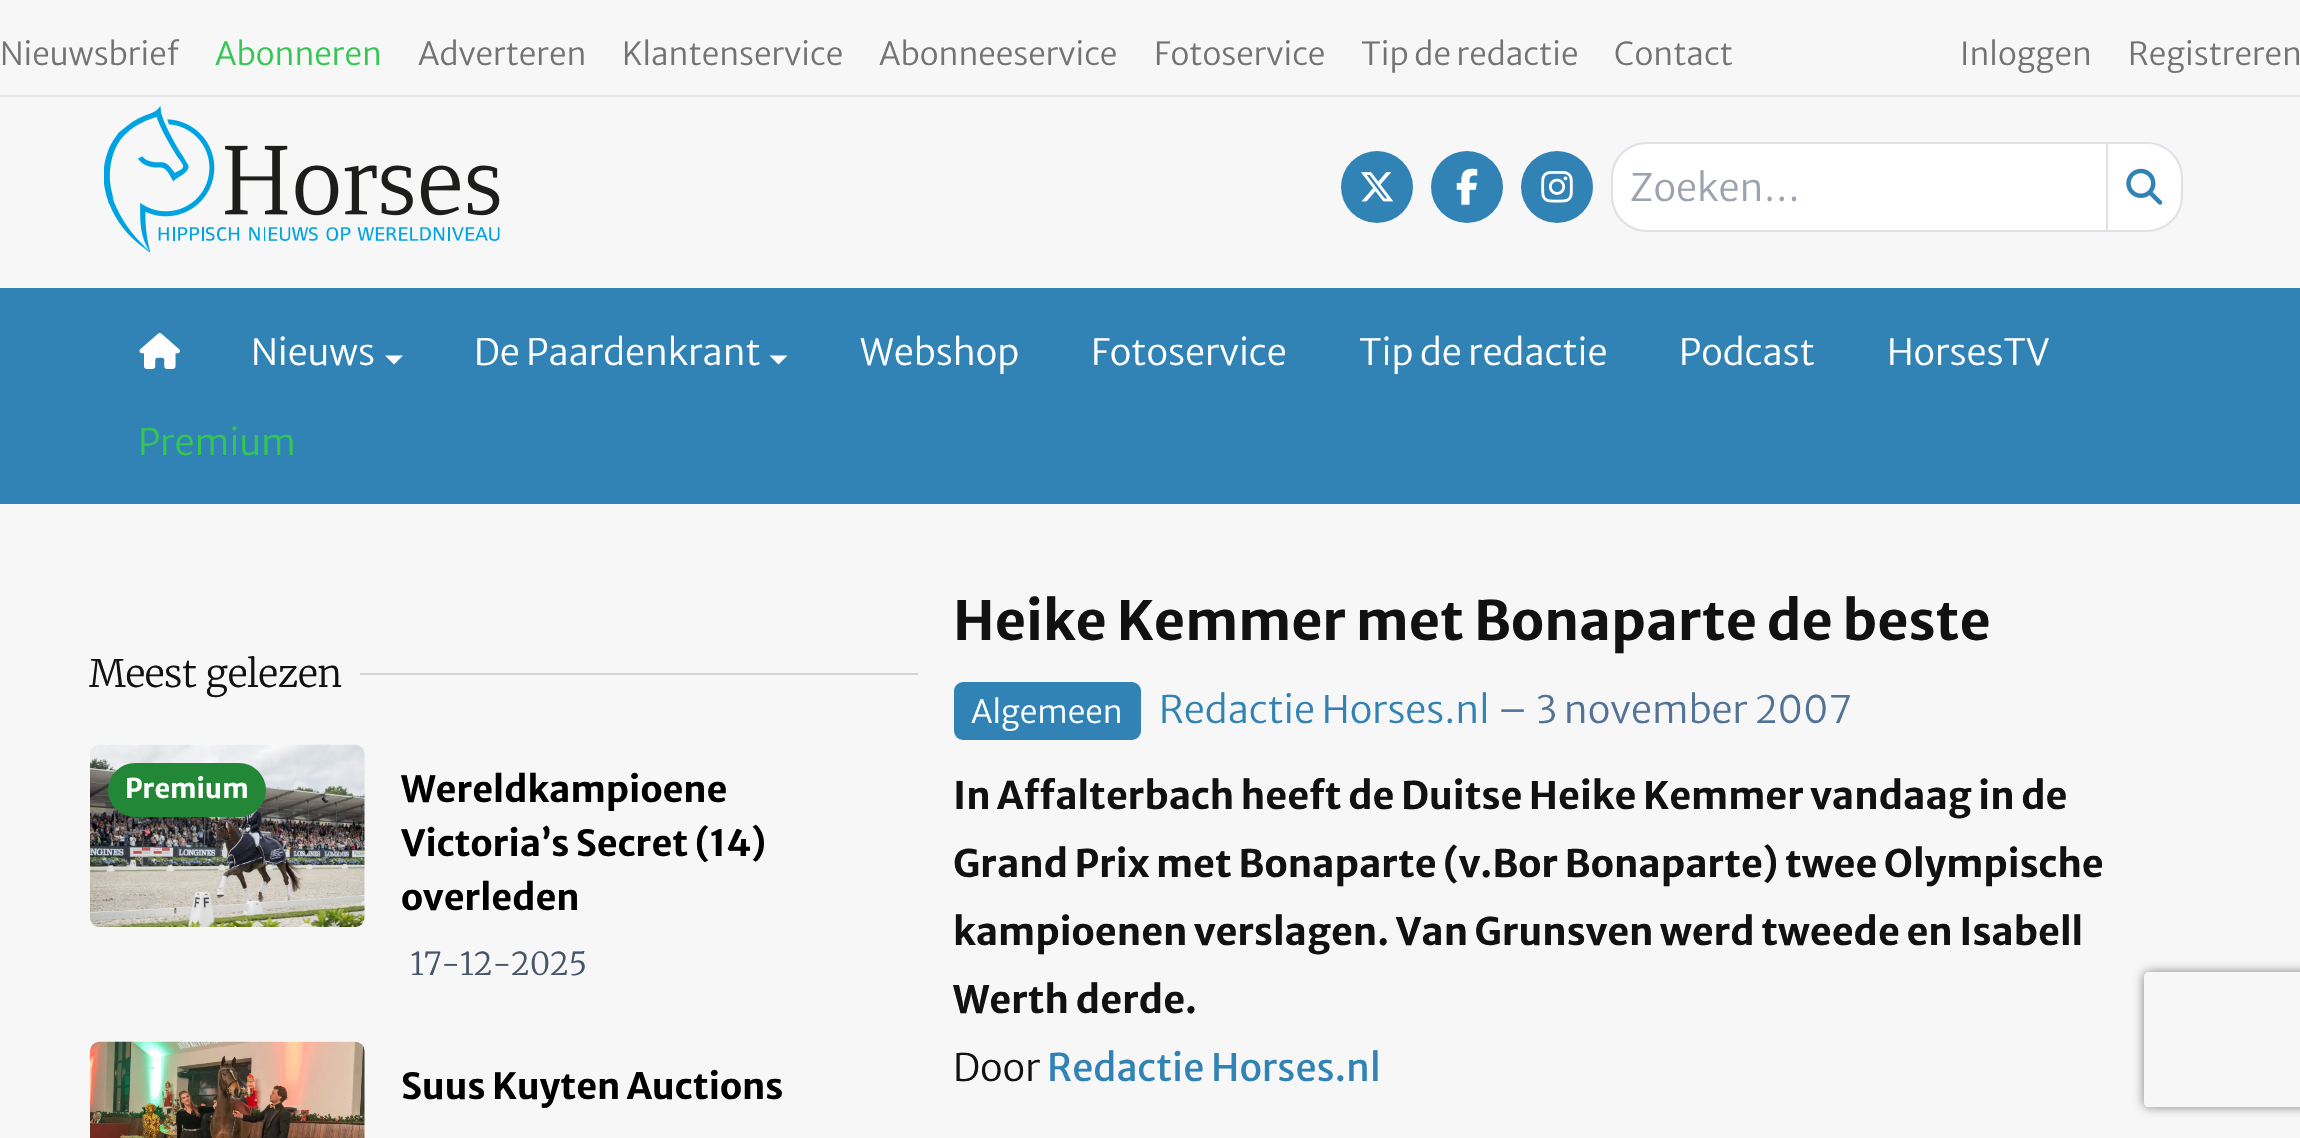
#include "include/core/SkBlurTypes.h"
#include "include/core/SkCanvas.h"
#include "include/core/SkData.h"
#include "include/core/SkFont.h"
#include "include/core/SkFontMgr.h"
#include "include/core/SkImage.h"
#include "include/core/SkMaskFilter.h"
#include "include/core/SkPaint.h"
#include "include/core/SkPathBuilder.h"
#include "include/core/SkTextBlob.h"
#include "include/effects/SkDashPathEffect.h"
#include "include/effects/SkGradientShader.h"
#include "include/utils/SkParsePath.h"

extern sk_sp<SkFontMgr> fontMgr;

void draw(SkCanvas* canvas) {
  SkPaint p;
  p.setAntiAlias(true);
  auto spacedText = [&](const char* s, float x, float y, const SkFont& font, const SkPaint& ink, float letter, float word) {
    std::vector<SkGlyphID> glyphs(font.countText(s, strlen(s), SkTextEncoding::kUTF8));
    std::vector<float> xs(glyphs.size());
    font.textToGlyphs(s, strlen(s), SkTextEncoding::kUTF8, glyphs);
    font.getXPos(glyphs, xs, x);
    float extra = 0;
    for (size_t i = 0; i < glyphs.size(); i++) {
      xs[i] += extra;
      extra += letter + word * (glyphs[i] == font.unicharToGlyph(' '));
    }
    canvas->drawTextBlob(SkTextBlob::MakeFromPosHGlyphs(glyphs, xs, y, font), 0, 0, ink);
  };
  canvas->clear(SkColorSetRGB(247, 247, 247));
  p.setColor(SkColorSetRGB(228, 228, 231));
  canvas->drawRect(SkRect::MakeLTRB(0, 95, 2300, 97), p);
  canvas->drawImageRect(SkImages::DeferredFromEncodedData(SkData::MakeFromFileName("images/1.png")), SkRect::MakeLTRB(104, 106, 500, 252), SkSamplingOptions());
  p.setColor(SkColorSetRGB(49, 131, 181));
  canvas->drawCircle(1377, 187, 36, p);
  canvas->drawImageRect(SkImages::DeferredFromEncodedData(SkData::MakeFromFileName("images/2.png")), SkRect::MakeLTRB(1361, 172, 1394, 202), SkSamplingOptions());
  canvas->drawCircle(1467, 187, 36, p);
  canvas->drawImageRect(SkImages::DeferredFromEncodedData(SkData::MakeFromFileName("images/3.png")), SkRect::MakeLTRB(1456, 168, 1478, 205), SkSamplingOptions());
  canvas->drawCircle(1557, 187, 36, p);
  canvas->drawImageRect(SkImages::DeferredFromEncodedData(SkData::MakeFromFileName("images/4.png")), SkRect::MakeLTRB(1541, 171, 1573, 203), SkSamplingOptions());
  p.setColor(SK_ColorWHITE);
  canvas->drawPath(SkPathBuilder().moveTo(1647, 144).lineTo(2106, 144).lineTo(2106, 230).lineTo(1647, 230).cubicTo(1628, 230, 1613, 215, 1613, 196).lineTo(1613, 178).cubicTo(1613, 159, 1628, 144, 1647, 144).close().detach(), p);
  p.setColor(SkColorSetRGB(222, 226, 230));
  canvas->drawPath(SkPathBuilder(SkPathFillType::kEvenOdd).moveTo(1647, 142).lineTo(2106, 142).lineTo(2106, 232).lineTo(1647, 232).cubicTo(1627, 232, 1611, 216, 1611, 196).lineTo(1611, 178).cubicTo(1611, 158, 1627, 142, 1647, 142).close().moveTo(1647, 144).lineTo(2106, 144).lineTo(2106, 230).lineTo(1647, 230).cubicTo(1628, 230, 1613, 214, 1613, 196).lineTo(1613, 178).cubicTo(1613, 159, 1628, 144, 1647, 144).close().detach(), p);
  p.setColor(SK_ColorWHITE);
  canvas->drawPath(SkPathBuilder().moveTo(2107, 143).lineTo(2147, 143).cubicTo(2166.5f, 143, 2182, 158.5f, 2182, 178).lineTo(2182, 196).cubicTo(2182, 215.5f, 2166.5f, 231, 2147, 231).lineTo(2107, 231).close().detach(), p);
  p.setStyle(SkPaint::kStroke_Style);
  p.setStrokeWidth(2);
  p.setColor(SkColorSetRGB(222, 226, 230));
  canvas->drawPath(SkPathBuilder().moveTo(2107, 143).lineTo(2147, 143).cubicTo(2166.5f, 143, 2182, 158.5f, 2182, 178).lineTo(2182, 196).cubicTo(2182, 215.5f, 2166.5f, 231, 2147, 231).lineTo(2107, 231).close().detach(), p);
  canvas->drawImageRect(SkImages::DeferredFromEncodedData(SkData::MakeFromFileName("images/5.png")), SkRect::MakeLTRB(2126, 168, 2163, 205), SkSamplingOptions());
  p.setStyle(SkPaint::kFill_Style);
  p.setColor(SkColorSetRGB(49, 131, 181));
  canvas->drawRect(SkRect::MakeLTRB(0, 288, 2300, 504), p);
  canvas->drawImageRect(SkImages::DeferredFromEncodedData(SkData::MakeFromFileName("images/6.png")), SkRect::MakeLTRB(139, 333, 180, 369), SkSamplingOptions());
  p.setColor(SK_ColorWHITE);
  canvas->drawPath(SkPathBuilder().moveTo(385, 355.5f).lineTo(403, 355.5f).lineTo(394, 364.5f).close().detach(), p);
  canvas->drawPath(SkPathBuilder().moveTo(769.5f, 355.5f).lineTo(787.5f, 355.5f).lineTo(778.5f, 364.5f).close().detach(), p);
  p.setColor(SkColorSetRGB(212, 212, 212));
  canvas->drawRect(SkRect::MakeLTRB(360, 673, 918, 675), p);
  canvas->drawImageRect(SkImages::DeferredFromEncodedData(SkData::MakeFromFileName("images/7.png")), SkRect::MakeLTRB(90, 744, 365, 927), SkSamplingOptions());
  p.setColor(SkColorSetRGB(34, 135, 54));
  canvas->drawRoundRect(SkRect::MakeLTRB(108, 763, 266, 817), 27, 27, p);
  canvas->drawImageRect(SkImages::DeferredFromEncodedData(SkData::MakeFromFileName("images/8.png")), SkRect::MakeLTRB(90, 1041, 365, 1138), SkSamplingOptions());
  p.setColor(SkColorSetRGB(49, 131, 181));
  canvas->drawRoundRect(SkRect::MakeLTRB(954, 682, 1141, 740), 9, 9, p);
  canvas->save();
  canvas->clipPath(SkPathBuilder(SkPathFillType::kEvenOdd).moveTo(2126, 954).lineTo(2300, 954).lineTo(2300, 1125).lineTo(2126, 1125).close().moveTo(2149, 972).lineTo(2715, 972).cubicTo(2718, 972, 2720, 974, 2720, 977).lineTo(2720, 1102).cubicTo(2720, 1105, 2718, 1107, 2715, 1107).lineTo(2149, 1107).cubicTo(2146, 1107, 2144, 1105, 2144, 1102).lineTo(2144, 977).cubicTo(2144, 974, 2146, 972, 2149, 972).close().detach(), true);
  p.setColor(SkColorSetRGB(128, 128, 128));
  p.setMaskFilter(SkMaskFilter::MakeBlur(kNormal_SkBlurStyle, 5.5f));
  canvas->drawRoundRect(SkRect::MakeLTRB(2144, 972, 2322, 1107), 5, 5, p);
  p.setMaskFilter(nullptr);
  canvas->restore();
  SkFont font1(fontMgr->matchFamilyStyle("Merriweather Sans", SkFontStyle(300, SkFontStyle::kNormal_Width, SkFontStyle::kUpright_Slant)), 31.5f);
  font1.setSubpixel(true);
  p.setColor(SkColorSetRGB(115, 115, 115));
  canvas->drawString("Nieuwsbrief", 0, 65, font1, p);
  p.setColor(SkColorSetRGB(51, 199, 81));
  canvas->drawString("Abonneren", 215, 65, font1, p);
  p.setColor(SkColorSetRGB(115, 115, 115));
  canvas->drawString("Adverteren", 418, 65, font1, p);
  canvas->drawString("Klantenservice", 622, 65, font1, p);
  canvas->drawString("Abonneeservice", 879, 65, font1, p);
  canvas->drawString("Fotoservice", 1154, 65, font1, p);
  canvas->drawString("Tip de redactie", 1361, 65, font1, p);
  canvas->drawString("Contact", 1614, 65, font1, p);
  canvas->drawString("Inloggen", 1960, 65, font1, p);
  canvas->drawString("Registreren", 2128, 65, font1, p);
  SkFont font2(fontMgr->matchFamilyStyle("Merriweather Sans", SkFontStyle(300, SkFontStyle::kNormal_Width, SkFontStyle::kUpright_Slant)), 37.8f);
  font2.setSubpixel(true);
  p.setColor(SkColorSetRGB(156, 163, 175));
  canvas->drawString("Zoeken…", 1630, 201, font2, p);
  SkFont font3(fontMgr->matchFamilyStyle("Merriweather Sans", SkFontStyle(300, SkFontStyle::kNormal_Width, SkFontStyle::kUpright_Slant)), 36);
  font3.setSubpixel(true);
  p.setColor(SK_ColorWHITE);
  canvas->drawString("Nieuws", 251, 365, font3, p);
  canvas->drawString("De Paardenkrant", 474, 365, font3, p);
  canvas->drawString("Webshop", 860, 365, font3, p);
  canvas->drawString("Fotoservice", 1091, 365, font3, p);
  canvas->drawString("Tip de redactie", 1359, 365, font3, p);
  canvas->drawString("Podcast", 1679, 365, font3, p);
  canvas->drawString("HorsesTV", 1887, 365, font3, p);
  p.setColor(SkColorSetRGB(51, 199, 81));
  canvas->drawString("Premium", 138, 455, font3, p);
  SkFont font4(fontMgr->matchFamilyStyle("Merriweather", SkFontStyle(300, SkFontStyle::kNormal_Width, SkFontStyle::kUpright_Slant)), 37.8f);
  font4.setSubpixel(true);
  p.setColor(SkColorSetRGB(17, 17, 17));
  canvas->drawString("Meest gelezen", 89, 687, font4, p);
  SkFont font5(fontMgr->matchFamilyStyle("Merriweather Sans", SkFontStyle::Bold()), 27);
  font5.setSubpixel(true);
  p.setColor(SK_ColorWHITE);
  canvas->drawString("Premium", 125, 798, font5, p);
  SkFont font6(fontMgr->matchFamilyStyle("Merriweather Sans", SkFontStyle::Bold()), 36);
  font6.setSubpixel(true);
  p.setColor(SK_ColorBLACK);
  canvas->drawString("Wereldkampioene", 401, 802, font6, p);
  canvas->drawString("Victoria’s Secret (14)", 401, 856, font6, p);
  canvas->drawString("overleden", 401, 910, font6, p);
  SkFont font7(fontMgr->matchFamilyStyle("Merriweather", SkFontStyle(300, SkFontStyle::kNormal_Width, SkFontStyle::kUpright_Slant)), 31.5f);
  font7.setSubpixel(true);
  p.setColor(SkColorSetRGB(71, 85, 105));
  canvas->drawString("17-12-2025", 410, 975, font7, p);
  p.setColor(SK_ColorBLACK);
  canvas->drawString("Suus Kuyten Auctions", 401, 1099, font6, p);
  SkFont font8(fontMgr->matchFamilyStyle("Merriweather Sans", SkFontStyle::Bold()), 54);
  font8.setSubpixel(true);
  p.setColor(SkColorSetRGB(17, 17, 17));
  canvas->drawString("Heike Kemmer met Bonaparte de beste", 953, 640, font8, p);
  p.setColor(SK_ColorWHITE);
  canvas->drawString("Algemeen", 971, 723, font1, p);
  p.setColor(SkColorSetRGB(49, 131, 181));
  canvas->drawString("Redactie Horses.nl", 1159, 723, font2, p);
  p.setColor(SkColorSetRGB(82, 115, 149));
  canvas->drawString("–", 1498, 723, font2, p);
  canvas->drawString("3 november 2007", 1536, 723, font2, p);
  SkFont font9(fontMgr->matchFamilyStyle("Merriweather Sans", SkFontStyle::Bold()), 37.8f);
  font9.setSubpixel(true);
  p.setColor(SkColorSetRGB(17, 17, 17));
  spacedText("In Affalterbach heeft de Duitse Heike Kemmer vandaag in de", 953, 809, font9, p, 0, -0.25f);
  spacedText("Grand Prix met Bonaparte (v.Bor Bonaparte) twee Olympische", 953, 877, font9, p, 0, -0.25f);
  spacedText("kampioenen verslagen. Van Grunsven werd tweede en Isabell", 953, 945, font9, p, 0, -0.25f);
  canvas->drawString("Werth derde.", 953, 1013, font9, p);
  canvas->drawString("Door", 953, 1081, font2, p);
  SkFont font10(fontMgr->matchFamilyStyle("Merriweather Sans", SkFontStyle::Normal()), 37.8f);
  font10.setSubpixel(true);
  p.setColor(SkColorSetRGB(49, 131, 181));
  canvas->drawString("Redactie Horses.nl", 1047, 1081, font10, p);
}
